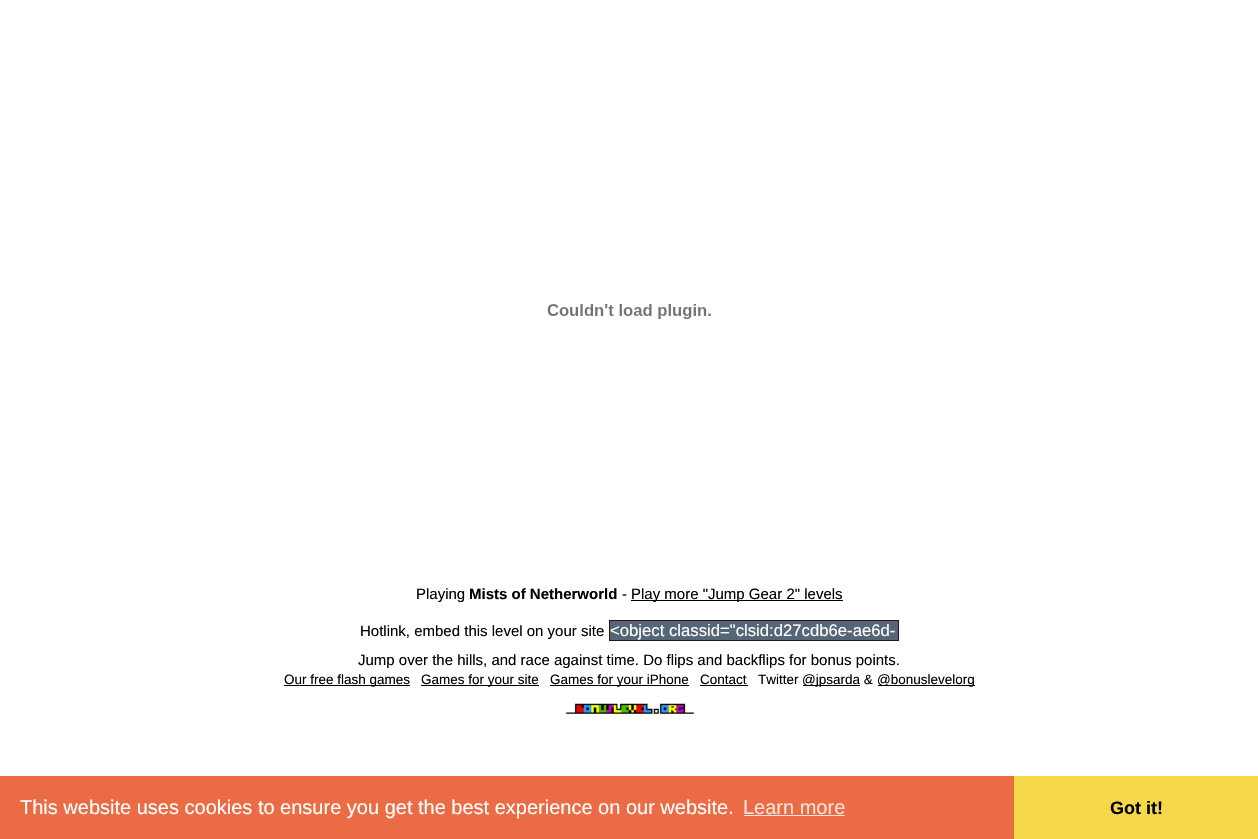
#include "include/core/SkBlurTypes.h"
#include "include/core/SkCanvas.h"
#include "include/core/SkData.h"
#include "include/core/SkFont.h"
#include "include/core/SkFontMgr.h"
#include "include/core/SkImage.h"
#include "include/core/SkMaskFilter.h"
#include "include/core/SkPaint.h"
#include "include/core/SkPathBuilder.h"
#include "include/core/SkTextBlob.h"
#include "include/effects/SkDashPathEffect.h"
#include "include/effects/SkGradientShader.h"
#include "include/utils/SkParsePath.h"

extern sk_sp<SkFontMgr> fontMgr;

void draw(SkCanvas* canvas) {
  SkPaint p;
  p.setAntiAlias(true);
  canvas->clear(SK_ColorWHITE);
  canvas->drawImageRect(SkImages::DeferredFromEncodedData(SkData::MakeFromFileName("images/1.png")), SkRect::MakeLTRB(547, 304, 711, 319), SkSamplingOptions());
  p.setColor(SK_ColorBLACK);
  canvas->drawRect(SkRect::MakeLTRB(631, 600, 843, 601), p);
  p.setColor(SkColorSetRGB(85, 102, 119));
  canvas->drawRect(SkRect::MakeLTRB(609.5f, 620.5f, 898.5f, 640.5f), p);
  p.setStyle(SkPaint::kStroke_Style);
  p.setStrokeWidth(1);
  p.setColor(SkColorSetRGB(51, 17, 17));
  canvas->drawRect(SkRect::MakeLTRB(609.5f, 620.5f, 898.5f, 640.5f), p);
  p.setStyle(SkPaint::kFill_Style);
  p.setColor(SK_ColorBLACK);
  canvas->drawRect(SkRect::MakeLTRB(284, 685, 410, 686), p);
  canvas->drawRect(SkRect::MakeLTRB(421, 685, 539, 686), p);
  canvas->drawRect(SkRect::MakeLTRB(550, 685, 689, 686), p);
  canvas->drawRect(SkRect::MakeLTRB(700, 685, 748, 686), p);
  canvas->drawRect(SkRect::MakeLTRB(803, 685, 860, 686), p);
  canvas->drawRect(SkRect::MakeLTRB(878, 685, 975, 686), p);
  canvas->drawImageRect(SkImages::DeferredFromEncodedData(SkData::MakeFromFileName("images/2.png")), SkRect::MakeLTRB(566, 703, 694, 714), SkSamplingOptions());
  p.setColor(SkColorSetRGB(235, 108, 68));
  canvas->drawRect(SkRect::MakeLTRB(0, 776, 1014, 839), p);
  p.setColor(SkColorSetRGB(251, 226, 218));
  canvas->drawRect(SkRect::MakeLTRB(744, 815, 845, 816), p);
  p.setColor(SkColorSetRGB(245, 217, 72));
  canvas->drawRect(SkRect::MakeLTRB(1014, 776, 1258, 839), p);
  SkFont font1(fontMgr->matchFamilyStyle("Liberation Sans", SkFontStyle::Normal()), 15);
  font1.setSubpixel(true);
  p.setColor(SK_ColorBLACK);
  canvas->drawString("Playing", 416, 599, font1, p);
  SkFont font2(fontMgr->matchFamilyStyle("Liberation Sans", SkFontStyle::Bold()), 15);
  font2.setSubpixel(true);
  canvas->drawString("Mists of Netherworld", 469, 599, font2, p);
  canvas->drawString("-", 622, 599, font1, p);
  canvas->drawString("Play more \"Jump Gear 2\" levels", 631, 599, font1, p);
  canvas->drawString("Hotlink, embed this level on your site", 360, 636, font1, p);
  SkFont font3(fontMgr->matchFamilyStyle("Liberation Sans", SkFontStyle::Normal()), 16.7f);
  font3.setSubpixel(true);
  p.setColor(SK_ColorWHITE);
  canvas->drawString("<object classid=\"clsid:d27cdb6e-ae6d-", 610, 636, font3, p);
  p.setColor(SK_ColorBLACK);
  canvas->drawString("Jump over the hills, and race against time. Do flips and backflips for bonus points.", 358, 665, font1, p);
  SkFont font4(fontMgr->matchFamilyStyle("Liberation Sans", SkFontStyle::Normal()), 13.5f);
  font4.setSubpixel(true);
  canvas->drawString("Our free flash games", 284, 684, font4, p);
  canvas->drawString("Games for your site", 421, 684, font4, p);
  canvas->drawString("Games for your iPhone", 550, 684, font4, p);
  canvas->drawString("Contact", 700, 684, font4, p);
  canvas->drawString("Twitter", 758, 684, font4, p);
  canvas->drawString("@jpsarda &", 802, 684, font4, p);
  canvas->drawString("@bonuslevelorg", 877, 684, font4, p);
  SkFont font5(fontMgr->matchFamilyStyle("Liberation Sans", SkFontStyle::Normal()), 20);
  font5.setSubpixel(true);
  p.setColor(SK_ColorWHITE);
  canvas->drawString("This website uses cookies to ensure you get the best experience on our website.", 20, 814, font5, p);
  p.setColor(SkColorSetRGB(251, 226, 218));
  canvas->drawString("Learn more", 743, 814, font5, p);
  SkFont font6(fontMgr->matchFamilyStyle("Liberation Sans", SkFontStyle::Bold()), 18);
  font6.setSubpixel(true);
  p.setColor(SK_ColorBLACK);
  canvas->drawString("Got it!", 1110, 814, font6, p);
}
